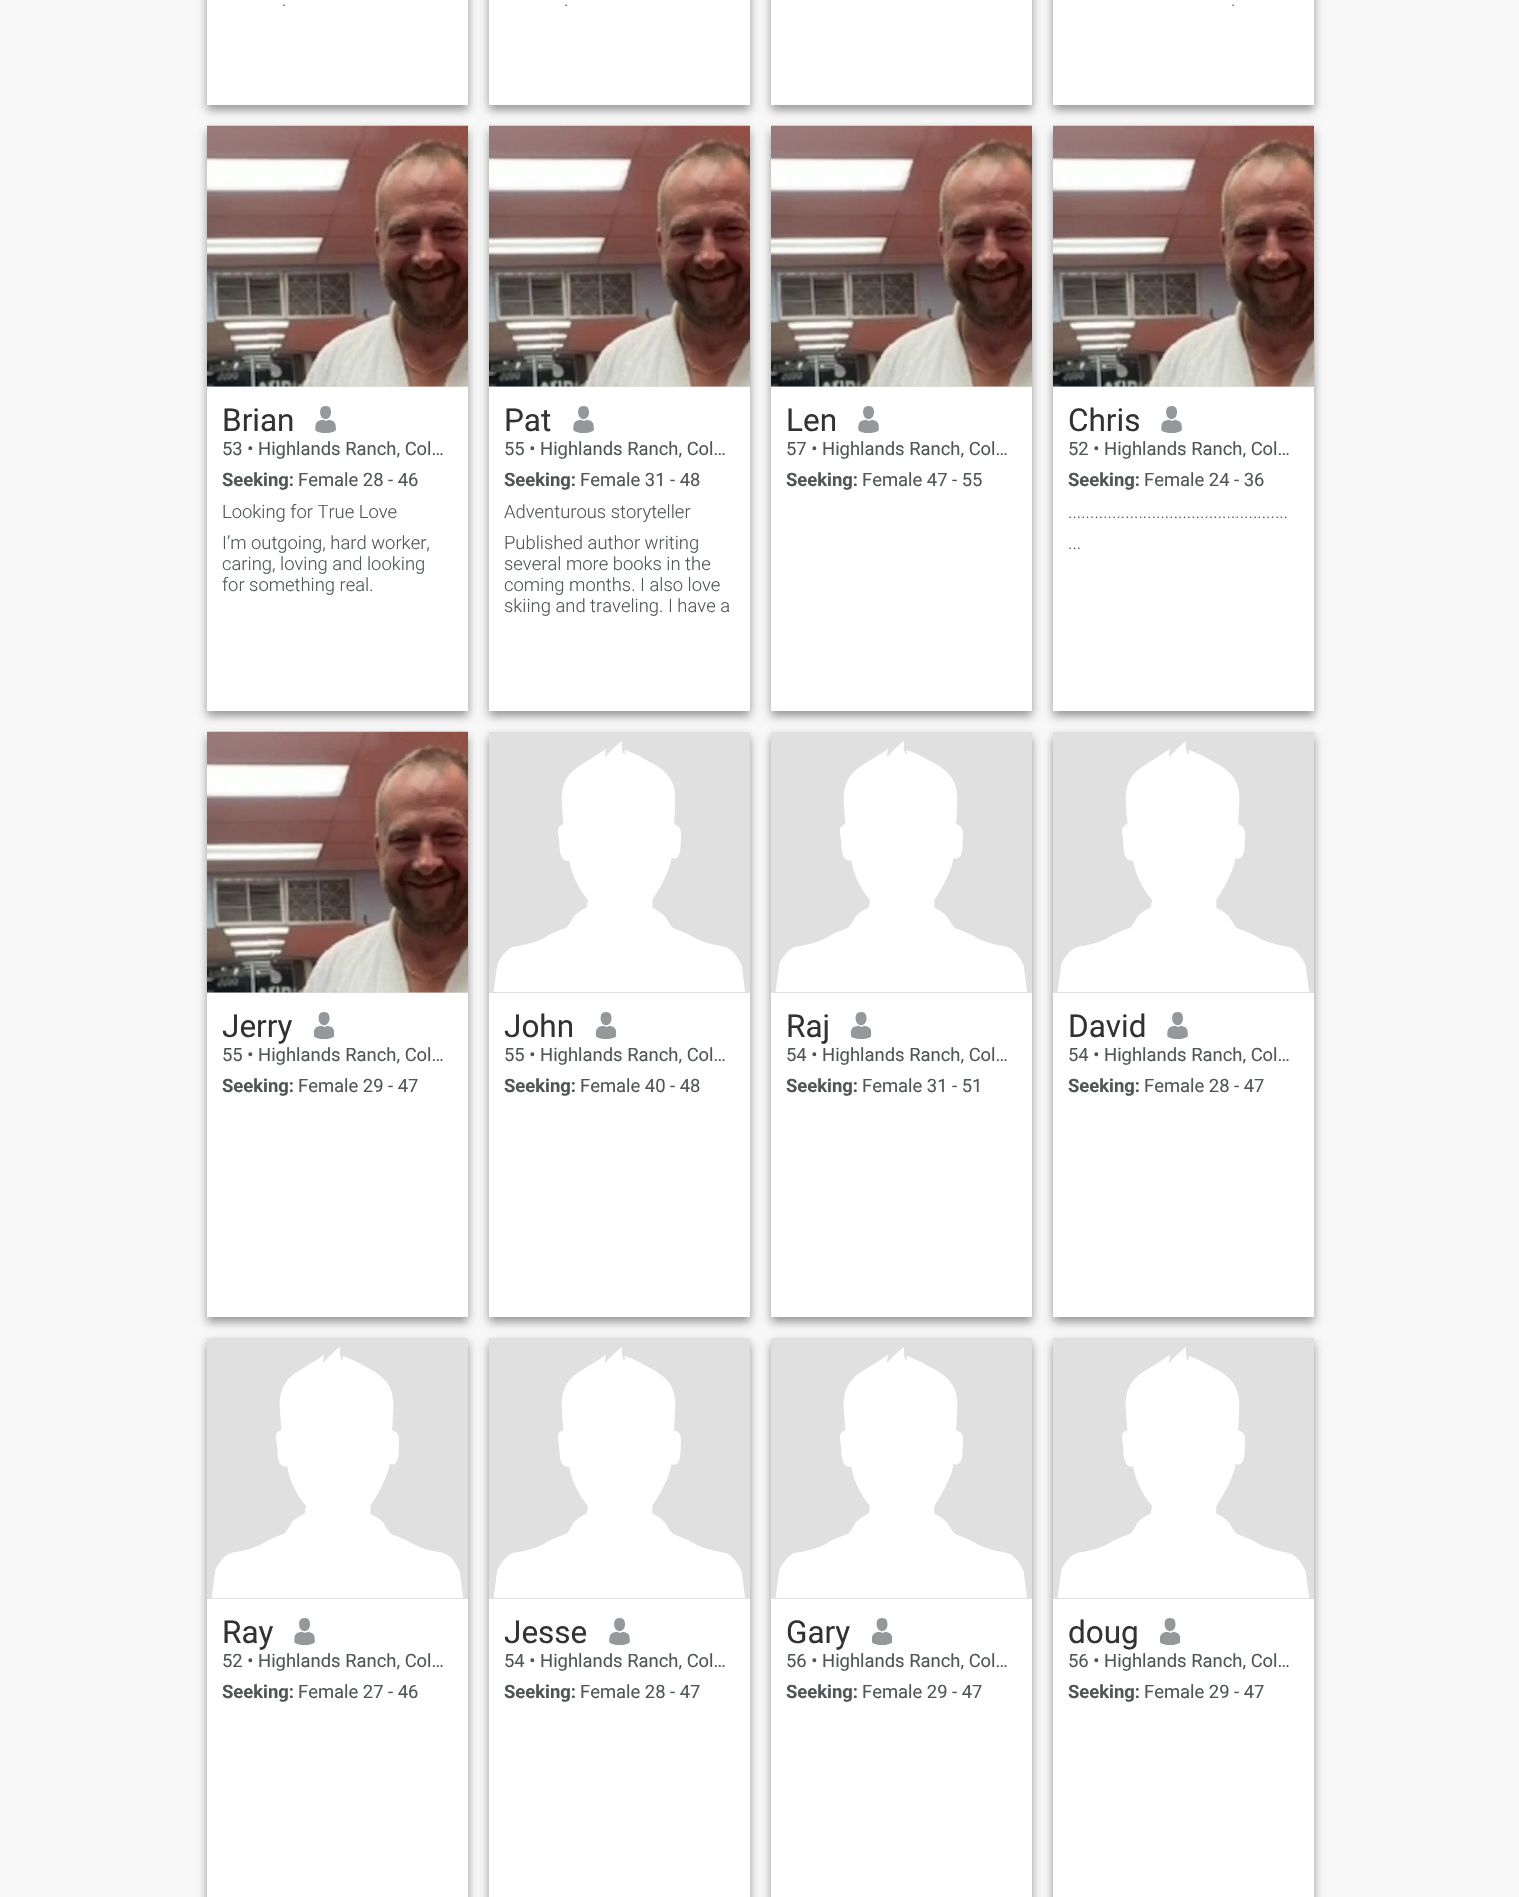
#include "include/core/SkBlurTypes.h"
#include "include/core/SkCanvas.h"
#include "include/core/SkData.h"
#include "include/core/SkFont.h"
#include "include/core/SkFontMgr.h"
#include "include/core/SkImage.h"
#include "include/core/SkMaskFilter.h"
#include "include/core/SkPaint.h"
#include "include/core/SkPathBuilder.h"
#include "include/core/SkTextBlob.h"
#include "include/effects/SkDashPathEffect.h"
#include "include/effects/SkGradientShader.h"
#include "include/utils/SkParsePath.h"

extern sk_sp<SkFontMgr> fontMgr;

void draw(SkCanvas* canvas) {
  SkPaint p;
  p.setAntiAlias(true);
  canvas->clear(SkColorSetRGB(248, 248, 248));
  p.setColor(SkColorSetARGB(102, 0, 0, 0));
  p.setMaskFilter(SkMaskFilter::MakeBlur(kNormal_SkBlurStyle, 4.5f));
  canvas->drawRect(SkRect::MakeLTRB(207, -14, 468, 110), p);
  p.setMaskFilter(nullptr);
  p.setColor(SK_ColorWHITE);
  canvas->drawRect(SkRect::MakeLTRB(207, 0, 468, 105), p);
  p.setColor(SkColorSetARGB(102, 0, 0, 0));
  p.setMaskFilter(SkMaskFilter::MakeBlur(kNormal_SkBlurStyle, 4.5f));
  canvas->drawRect(SkRect::MakeLTRB(489, -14, 750, 110), p);
  p.setMaskFilter(nullptr);
  p.setColor(SK_ColorWHITE);
  canvas->drawRect(SkRect::MakeLTRB(489, 0, 750, 105), p);
  p.setColor(SkColorSetARGB(102, 0, 0, 0));
  p.setMaskFilter(SkMaskFilter::MakeBlur(kNormal_SkBlurStyle, 4.5f));
  canvas->drawRect(SkRect::MakeLTRB(771, -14, 1032, 110), p);
  p.setMaskFilter(nullptr);
  p.setColor(SK_ColorWHITE);
  canvas->drawRect(SkRect::MakeLTRB(771, 0, 1032, 105), p);
  p.setColor(SkColorSetARGB(102, 0, 0, 0));
  p.setMaskFilter(SkMaskFilter::MakeBlur(kNormal_SkBlurStyle, 4.5f));
  canvas->drawRect(SkRect::MakeLTRB(1053, -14, 1314, 110), p);
  p.setMaskFilter(nullptr);
  p.setColor(SK_ColorWHITE);
  canvas->drawRect(SkRect::MakeLTRB(1053, 0, 1314, 105), p);
  p.setColor(SkColorSetARGB(102, 0, 0, 0));
  p.setMaskFilter(SkMaskFilter::MakeBlur(kNormal_SkBlurStyle, 4.5f));
  canvas->drawRect(SkRect::MakeLTRB(207, 131, 468, 716), p);
  p.setMaskFilter(nullptr);
  p.setColor(SK_ColorWHITE);
  canvas->drawRect(SkRect::MakeLTRB(207, 387, 468, 711), p);
  p.setColor(SkColorSetRGB(224, 224, 224));
  canvas->drawRect(SkRect::MakeLTRB(207, 386, 468, 387), p);
  canvas->drawImageRect(SkImages::DeferredFromEncodedData(SkData::MakeFromFileName("images/1.png")), SkRect::MakeLTRB(207, 125, 468, 387), SkSamplingOptions());
  canvas->drawImageRect(SkImages::DeferredFromEncodedData(SkData::MakeFromFileName("images/2.png")), SkRect::MakeLTRB(315, 406, 336, 433), SkSamplingOptions());
  p.setColor(SkColorSetARGB(102, 0, 0, 0));
  p.setMaskFilter(SkMaskFilter::MakeBlur(kNormal_SkBlurStyle, 4.5f));
  canvas->drawRect(SkRect::MakeLTRB(489, 131, 750, 716), p);
  p.setMaskFilter(nullptr);
  p.setColor(SK_ColorWHITE);
  canvas->drawRect(SkRect::MakeLTRB(489, 387, 750, 711), p);
  p.setColor(SkColorSetRGB(224, 224, 224));
  canvas->drawRect(SkRect::MakeLTRB(489, 386, 750, 387), p);
  canvas->drawImageRect(SkImages::DeferredFromEncodedData(SkData::MakeFromFileName("images/1.png")), SkRect::MakeLTRB(489, 125, 750, 387), SkSamplingOptions());
  canvas->drawImageRect(SkImages::DeferredFromEncodedData(SkData::MakeFromFileName("images/2.png")), SkRect::MakeLTRB(573, 406, 594, 433), SkSamplingOptions());
  p.setColor(SkColorSetARGB(102, 0, 0, 0));
  p.setMaskFilter(SkMaskFilter::MakeBlur(kNormal_SkBlurStyle, 4.5f));
  canvas->drawRect(SkRect::MakeLTRB(771, 131, 1032, 716), p);
  p.setMaskFilter(nullptr);
  p.setColor(SK_ColorWHITE);
  canvas->drawRect(SkRect::MakeLTRB(771, 387, 1032, 711), p);
  p.setColor(SkColorSetRGB(224, 224, 224));
  canvas->drawRect(SkRect::MakeLTRB(771, 386, 1032, 387), p);
  canvas->drawImageRect(SkImages::DeferredFromEncodedData(SkData::MakeFromFileName("images/1.png")), SkRect::MakeLTRB(771, 125, 1032, 387), SkSamplingOptions());
  canvas->drawImageRect(SkImages::DeferredFromEncodedData(SkData::MakeFromFileName("images/2.png")), SkRect::MakeLTRB(858, 406, 879, 433), SkSamplingOptions());
  p.setColor(SkColorSetARGB(102, 0, 0, 0));
  p.setMaskFilter(SkMaskFilter::MakeBlur(kNormal_SkBlurStyle, 4.5f));
  canvas->drawRect(SkRect::MakeLTRB(1053, 131, 1314, 716), p);
  p.setMaskFilter(nullptr);
  p.setColor(SK_ColorWHITE);
  canvas->drawRect(SkRect::MakeLTRB(1053, 387, 1314, 711), p);
  p.setColor(SkColorSetRGB(224, 224, 224));
  canvas->drawRect(SkRect::MakeLTRB(1053, 386, 1314, 387), p);
  canvas->drawImageRect(SkImages::DeferredFromEncodedData(SkData::MakeFromFileName("images/1.png")), SkRect::MakeLTRB(1053, 125, 1314, 387), SkSamplingOptions());
  canvas->drawImageRect(SkImages::DeferredFromEncodedData(SkData::MakeFromFileName("images/2.png")), SkRect::MakeLTRB(1161, 406, 1182, 433), SkSamplingOptions());
  p.setColor(SkColorSetARGB(102, 0, 0, 0));
  p.setMaskFilter(SkMaskFilter::MakeBlur(kNormal_SkBlurStyle, 4.5f));
  canvas->drawRect(SkRect::MakeLTRB(207, 737, 468, 1322), p);
  p.setMaskFilter(nullptr);
  p.setColor(SK_ColorWHITE);
  canvas->drawRect(SkRect::MakeLTRB(207, 993, 468, 1317), p);
  p.setColor(SkColorSetRGB(224, 224, 224));
  canvas->drawRect(SkRect::MakeLTRB(207, 992, 468, 993), p);
  canvas->drawImageRect(SkImages::DeferredFromEncodedData(SkData::MakeFromFileName("images/1.png")), SkRect::MakeLTRB(207, 731, 468, 993), SkSamplingOptions());
  canvas->drawImageRect(SkImages::DeferredFromEncodedData(SkData::MakeFromFileName("images/3.png")), SkRect::MakeLTRB(313, 1012, 335, 1039), SkSamplingOptions());
  p.setColor(SkColorSetARGB(102, 0, 0, 0));
  p.setMaskFilter(SkMaskFilter::MakeBlur(kNormal_SkBlurStyle, 4.5f));
  canvas->drawRect(SkRect::MakeLTRB(489, 737, 750, 1322), p);
  p.setMaskFilter(nullptr);
  p.setColor(SK_ColorWHITE);
  canvas->drawRect(SkRect::MakeLTRB(489, 993, 750, 1317), p);
  p.setColor(SkColorSetRGB(224, 224, 224));
  canvas->drawRect(SkRect::MakeLTRB(489, 732, 750, 993), p);
  canvas->drawImageRect(SkImages::DeferredFromEncodedData(SkData::MakeFromFileName("images/4.png")), SkRect::MakeLTRB(493, 741, 745, 992), SkSamplingOptions());
  canvas->drawImageRect(SkImages::DeferredFromEncodedData(SkData::MakeFromFileName("images/3.png")), SkRect::MakeLTRB(595, 1012, 617, 1039), SkSamplingOptions());
  p.setColor(SkColorSetARGB(102, 0, 0, 0));
  p.setMaskFilter(SkMaskFilter::MakeBlur(kNormal_SkBlurStyle, 4.5f));
  canvas->drawRect(SkRect::MakeLTRB(771, 737, 1032, 1322), p);
  p.setMaskFilter(nullptr);
  p.setColor(SK_ColorWHITE);
  canvas->drawRect(SkRect::MakeLTRB(771, 993, 1032, 1317), p);
  p.setColor(SkColorSetRGB(224, 224, 224));
  canvas->drawRect(SkRect::MakeLTRB(771, 732, 1032, 993), p);
  canvas->drawImageRect(SkImages::DeferredFromEncodedData(SkData::MakeFromFileName("images/5.png")), SkRect::MakeLTRB(775, 741, 1027, 992), SkSamplingOptions());
  canvas->drawImageRect(SkImages::DeferredFromEncodedData(SkData::MakeFromFileName("images/3.png")), SkRect::MakeLTRB(850, 1012, 872, 1039), SkSamplingOptions());
  p.setColor(SkColorSetARGB(102, 0, 0, 0));
  p.setMaskFilter(SkMaskFilter::MakeBlur(kNormal_SkBlurStyle, 4.5f));
  canvas->drawRect(SkRect::MakeLTRB(1053, 737, 1314, 1322), p);
  p.setMaskFilter(nullptr);
  p.setColor(SK_ColorWHITE);
  canvas->drawRect(SkRect::MakeLTRB(1053, 993, 1314, 1317), p);
  p.setColor(SkColorSetRGB(224, 224, 224));
  canvas->drawRect(SkRect::MakeLTRB(1053, 732, 1314, 993), p);
  canvas->drawImageRect(SkImages::DeferredFromEncodedData(SkData::MakeFromFileName("images/6.png")), SkRect::MakeLTRB(1057, 741, 1309, 992), SkSamplingOptions());
  canvas->drawImageRect(SkImages::DeferredFromEncodedData(SkData::MakeFromFileName("images/7.png")), SkRect::MakeLTRB(1167, 1012, 1188, 1039), SkSamplingOptions());
  p.setColor(SkColorSetARGB(102, 0, 0, 0));
  p.setMaskFilter(SkMaskFilter::MakeBlur(kNormal_SkBlurStyle, 4.5f));
  canvas->drawRect(SkRect::MakeLTRB(207, 1343, 468, 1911), p);
  p.setMaskFilter(nullptr);
  p.setColor(SK_ColorWHITE);
  canvas->drawRect(SkRect::MakeLTRB(207, 1599, 468, 1897), p);
  p.setColor(SkColorSetRGB(224, 224, 224));
  canvas->drawRect(SkRect::MakeLTRB(207, 1338, 468, 1599), p);
  canvas->drawImageRect(SkImages::DeferredFromEncodedData(SkData::MakeFromFileName("images/8.png")), SkRect::MakeLTRB(211, 1347, 463, 1598), SkSamplingOptions());
  canvas->drawImageRect(SkImages::DeferredFromEncodedData(SkData::MakeFromFileName("images/9.png")), SkRect::MakeLTRB(294, 1618, 315, 1645), SkSamplingOptions());
  p.setColor(SkColorSetARGB(102, 0, 0, 0));
  p.setMaskFilter(SkMaskFilter::MakeBlur(kNormal_SkBlurStyle, 4.5f));
  canvas->drawRect(SkRect::MakeLTRB(489, 1343, 750, 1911), p);
  p.setMaskFilter(nullptr);
  p.setColor(SK_ColorWHITE);
  canvas->drawRect(SkRect::MakeLTRB(489, 1599, 750, 1897), p);
  p.setColor(SkColorSetRGB(224, 224, 224));
  canvas->drawRect(SkRect::MakeLTRB(489, 1338, 750, 1599), p);
  canvas->drawImageRect(SkImages::DeferredFromEncodedData(SkData::MakeFromFileName("images/10.png")), SkRect::MakeLTRB(493, 1347, 745, 1598), SkSamplingOptions());
  canvas->drawImageRect(SkImages::DeferredFromEncodedData(SkData::MakeFromFileName("images/9.png")), SkRect::MakeLTRB(609, 1618, 630, 1645), SkSamplingOptions());
  p.setColor(SkColorSetARGB(102, 0, 0, 0));
  p.setMaskFilter(SkMaskFilter::MakeBlur(kNormal_SkBlurStyle, 4.5f));
  canvas->drawRect(SkRect::MakeLTRB(771, 1343, 1032, 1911), p);
  p.setMaskFilter(nullptr);
  p.setColor(SK_ColorWHITE);
  canvas->drawRect(SkRect::MakeLTRB(771, 1599, 1032, 1897), p);
  p.setColor(SkColorSetRGB(224, 224, 224));
  canvas->drawRect(SkRect::MakeLTRB(771, 1338, 1032, 1599), p);
  canvas->drawImageRect(SkImages::DeferredFromEncodedData(SkData::MakeFromFileName("images/11.png")), SkRect::MakeLTRB(775, 1347, 1027, 1598), SkSamplingOptions());
  canvas->drawImageRect(SkImages::DeferredFromEncodedData(SkData::MakeFromFileName("images/12.png")), SkRect::MakeLTRB(871, 1618, 893, 1645), SkSamplingOptions());
  p.setColor(SkColorSetARGB(102, 0, 0, 0));
  p.setMaskFilter(SkMaskFilter::MakeBlur(kNormal_SkBlurStyle, 4.5f));
  canvas->drawRect(SkRect::MakeLTRB(1053, 1343, 1314, 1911), p);
  p.setMaskFilter(nullptr);
  p.setColor(SK_ColorWHITE);
  canvas->drawRect(SkRect::MakeLTRB(1053, 1599, 1314, 1897), p);
  p.setColor(SkColorSetRGB(224, 224, 224));
  canvas->drawRect(SkRect::MakeLTRB(1053, 1338, 1314, 1599), p);
  canvas->drawImageRect(SkImages::DeferredFromEncodedData(SkData::MakeFromFileName("images/13.png")), SkRect::MakeLTRB(1057, 1347, 1309, 1598), SkSamplingOptions());
  canvas->drawImageRect(SkImages::DeferredFromEncodedData(SkData::MakeFromFileName("images/12.png")), SkRect::MakeLTRB(1159, 1618, 1181, 1645), SkSamplingOptions());
  SkFont font1(fontMgr->matchFamilyStyle("Roboto", SkFontStyle(300, SkFontStyle::kNormal_Width, SkFontStyle::kUpright_Slant)), 18.4f);
  font1.setSubpixel(true);
  p.setColor(SkColorSetRGB(80, 86, 86));
  canvas->drawString(".", 282, 6, font1, p);
  canvas->drawString(".", 564, 6, font1, p);
  canvas->drawString(".", 1231, 6, font1, p);
  SkFont font2(fontMgr->matchFamilyStyle("Roboto", SkFontStyle::Normal()), 31.5f);
  font2.setSubpixel(true);
  p.setColor(SkColorSetRGB(50, 50, 50));
  canvas->drawString("Brian", 222, 431, font2, p);
  SkFont font3(fontMgr->matchFamilyStyle("Roboto", SkFontStyle::Normal()), 18.4f);
  font3.setSubpixel(true);
  p.setColor(SkColorSetRGB(80, 86, 86));
  canvas->drawString("53 • Highlands Ranch, Col…", 222, 455, font3, p);
  SkFont font4(fontMgr->matchFamilyStyle("Roboto", SkFontStyle::Bold()), 18.4f);
  font4.setSubpixel(true);
  canvas->drawString("Seeking:", 222, 486, font4, p);
  canvas->drawString("Female 28 - 46", 298, 486, font3, p);
  canvas->drawString("Looking for True Love", 222, 518, font1, p);
  canvas->drawString("I’m outgoing, hard worker,", 222, 549, font1, p);
  canvas->drawString("caring, loving and looking", 222, 570, font1, p);
  canvas->drawString("for something real.", 222, 591, font1, p);
  p.setColor(SkColorSetRGB(50, 50, 50));
  canvas->drawString("Pat", 504, 431, font2, p);
  p.setColor(SkColorSetRGB(80, 86, 86));
  canvas->drawString("55 • Highlands Ranch, Col…", 504, 455, font3, p);
  canvas->drawString("Seeking:", 504, 486, font4, p);
  canvas->drawString("Female 31 - 48", 580, 486, font3, p);
  canvas->drawString("Adventurous storyteller", 504, 518, font1, p);
  canvas->drawString("Published author writing", 504, 549, font1, p);
  canvas->drawString("several more books in the", 504, 570, font1, p);
  canvas->drawString("coming months. I also love", 504, 591, font1, p);
  canvas->drawString("skiing and traveling. I have a", 504, 612, font1, p);
  p.setColor(SkColorSetRGB(50, 50, 50));
  canvas->drawString("Len", 786, 431, font2, p);
  p.setColor(SkColorSetRGB(80, 86, 86));
  canvas->drawString("57 • Highlands Ranch, Col…", 786, 455, font3, p);
  canvas->drawString("Seeking:", 786, 486, font4, p);
  canvas->drawString("Female 47 - 55", 862, 486, font3, p);
  p.setColor(SkColorSetRGB(50, 50, 50));
  canvas->drawString("Chris", 1068, 431, font2, p);
  p.setColor(SkColorSetRGB(80, 86, 86));
  canvas->drawString("52 • Highlands Ranch, Col…", 1068, 455, font3, p);
  canvas->drawString("Seeking:", 1068, 486, font4, p);
  canvas->drawString("Female 24 - 36", 1144, 486, font3, p);
  canvas->drawString("..................................................", 1068, 518, font1, p);
  canvas->drawString("...", 1068, 549, font1, p);
  p.setColor(SkColorSetRGB(50, 50, 50));
  canvas->drawString("Jerry", 222, 1037, font2, p);
  p.setColor(SkColorSetRGB(80, 86, 86));
  canvas->drawString("55 • Highlands Ranch, Col…", 222, 1061, font3, p);
  canvas->drawString("Seeking:", 222, 1092, font4, p);
  canvas->drawString("Female 29 - 47", 298, 1092, font3, p);
  p.setColor(SkColorSetRGB(50, 50, 50));
  canvas->drawString("John", 504, 1037, font2, p);
  p.setColor(SkColorSetRGB(80, 86, 86));
  canvas->drawString("55 • Highlands Ranch, Col…", 504, 1061, font3, p);
  canvas->drawString("Seeking:", 504, 1092, font4, p);
  canvas->drawString("Female 40 - 48", 580, 1092, font3, p);
  p.setColor(SkColorSetRGB(50, 50, 50));
  canvas->drawString("Raj", 786, 1037, font2, p);
  p.setColor(SkColorSetRGB(80, 86, 86));
  canvas->drawString("54 • Highlands Ranch, Col…", 786, 1061, font3, p);
  canvas->drawString("Seeking:", 786, 1092, font4, p);
  canvas->drawString("Female 31 - 51", 862, 1092, font3, p);
  p.setColor(SkColorSetRGB(50, 50, 50));
  canvas->drawString("David", 1068, 1037, font2, p);
  p.setColor(SkColorSetRGB(80, 86, 86));
  canvas->drawString("54 • Highlands Ranch, Col…", 1068, 1061, font3, p);
  canvas->drawString("Seeking:", 1068, 1092, font4, p);
  canvas->drawString("Female 28 - 47", 1144, 1092, font3, p);
  p.setColor(SkColorSetRGB(50, 50, 50));
  canvas->drawString("Ray", 222, 1643, font2, p);
  p.setColor(SkColorSetRGB(80, 86, 86));
  canvas->drawString("52 • Highlands Ranch, Col…", 222, 1667, font3, p);
  canvas->drawString("Seeking:", 222, 1698, font4, p);
  canvas->drawString("Female 27 - 46", 298, 1698, font3, p);
  p.setColor(SkColorSetRGB(50, 50, 50));
  canvas->drawString("Jesse", 504, 1643, font2, p);
  p.setColor(SkColorSetRGB(80, 86, 86));
  canvas->drawString("54 • Highlands Ranch, Col…", 504, 1667, font3, p);
  canvas->drawString("Seeking:", 504, 1698, font4, p);
  canvas->drawString("Female 28 - 47", 580, 1698, font3, p);
  p.setColor(SkColorSetRGB(50, 50, 50));
  canvas->drawString("Gary", 786, 1643, font2, p);
  p.setColor(SkColorSetRGB(80, 86, 86));
  canvas->drawString("56 • Highlands Ranch, Col…", 786, 1667, font3, p);
  canvas->drawString("Seeking:", 786, 1698, font4, p);
  canvas->drawString("Female 29 - 47", 862, 1698, font3, p);
  p.setColor(SkColorSetRGB(50, 50, 50));
  canvas->drawString("doug", 1068, 1643, font2, p);
  p.setColor(SkColorSetRGB(80, 86, 86));
  canvas->drawString("56 • Highlands Ranch, Col…", 1068, 1667, font3, p);
  canvas->drawString("Seeking:", 1068, 1698, font4, p);
  canvas->drawString("Female 29 - 47", 1144, 1698, font3, p);
}
